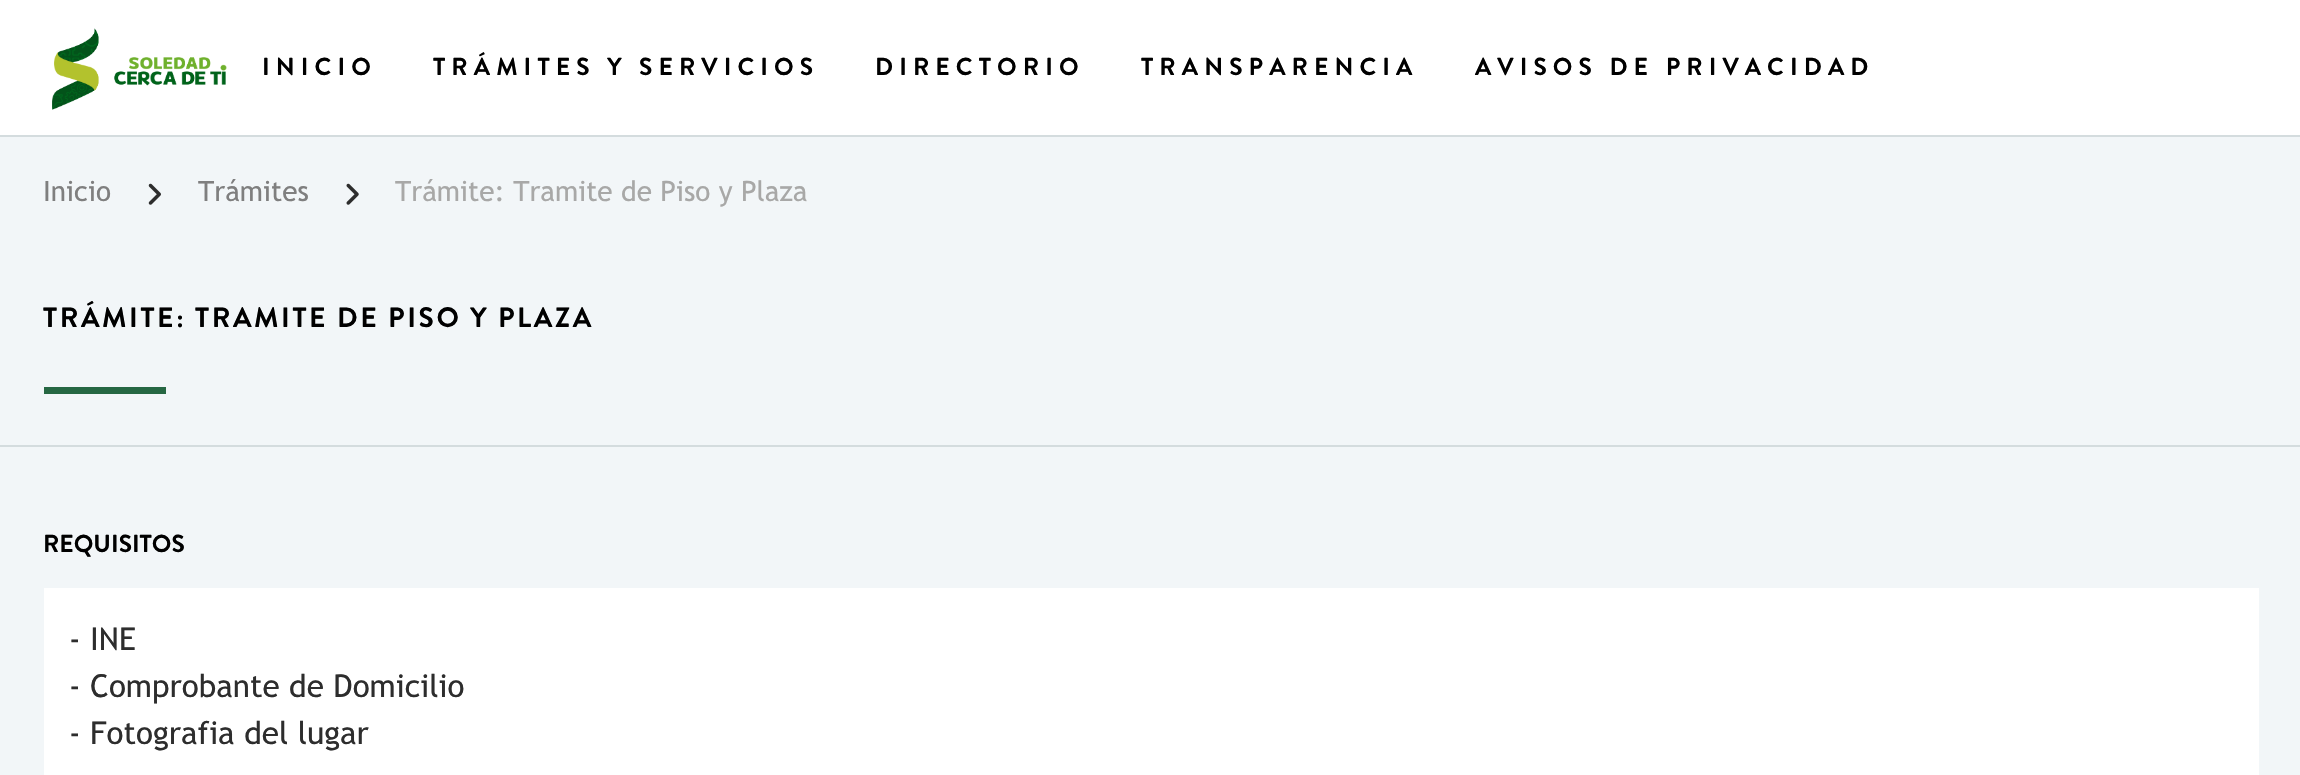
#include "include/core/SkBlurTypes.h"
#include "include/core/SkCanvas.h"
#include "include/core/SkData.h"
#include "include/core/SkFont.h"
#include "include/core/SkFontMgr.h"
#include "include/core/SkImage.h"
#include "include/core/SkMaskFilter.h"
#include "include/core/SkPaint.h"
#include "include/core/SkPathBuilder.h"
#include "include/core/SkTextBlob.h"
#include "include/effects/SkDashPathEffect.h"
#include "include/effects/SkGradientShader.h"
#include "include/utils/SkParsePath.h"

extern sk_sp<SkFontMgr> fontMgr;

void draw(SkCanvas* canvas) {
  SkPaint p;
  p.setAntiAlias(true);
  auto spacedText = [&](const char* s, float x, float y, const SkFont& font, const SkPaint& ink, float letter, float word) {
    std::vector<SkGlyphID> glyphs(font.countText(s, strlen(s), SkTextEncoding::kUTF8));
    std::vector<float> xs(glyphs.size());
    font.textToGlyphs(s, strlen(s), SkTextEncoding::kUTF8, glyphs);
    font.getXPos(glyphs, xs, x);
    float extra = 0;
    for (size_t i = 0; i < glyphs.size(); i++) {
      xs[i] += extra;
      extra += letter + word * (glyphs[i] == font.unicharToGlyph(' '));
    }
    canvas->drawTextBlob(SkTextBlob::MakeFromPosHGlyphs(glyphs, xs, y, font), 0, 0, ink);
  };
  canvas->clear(SK_ColorWHITE);
  p.setColor(SkColorSetRGB(212, 220, 222));
  canvas->drawRect(SkRect::MakeLTRB(0, 135, 2300, 137), p);
  canvas->drawImageRect(SkImages::DeferredFromEncodedData(SkData::MakeFromFileName("images/1.png")), SkRect::MakeLTRB(52, 28, 227, 110), SkSamplingOptions());
  p.setColor(SkColorSetRGB(242, 246, 248));
  canvas->drawRect(SkRect::MakeLTRB(0, 137, 2300, 775), p);
  canvas->drawImageRect(SkImages::DeferredFromEncodedData(SkData::MakeFromFileName("images/2.png")), SkRect::MakeLTRB(148, 183, 161, 205), SkSamplingOptions());
  canvas->drawImageRect(SkImages::DeferredFromEncodedData(SkData::MakeFromFileName("images/3.png")), SkRect::MakeLTRB(346, 183, 359, 205), SkSamplingOptions());
  p.setColor(SkColorSetRGB(38, 103, 67));
  canvas->drawRect(SkRect::MakeLTRB(44, 387, 166, 394), p);
  p.setColor(SkColorSetRGB(212, 220, 222));
  canvas->drawRect(SkRect::MakeLTRB(0, 445, 2300, 447), p);
  p.setColor(SK_ColorWHITE);
  canvas->drawRect(SkRect::MakeLTRB(44, 588, 2259, 775), p);
  SkFont font1(fontMgr->matchFamilyStyle("Brandon Grotesque", SkFontStyle::Bold()), 24.5f);
  font1.setSubpixel(true);
  p.setColor(SK_ColorBLACK);
  spacedText("INICIO", 262, 75, font1, p, 6.1f, 0);
  spacedText("TRÁMITES Y SERVICIOS", 433, 75, font1, p, 6.1f, 0);
  spacedText("DIRECTORIO", 875, 75, font1, p, 6.1f, 0);
  spacedText("TRANSPARENCIA", 1141, 75, font1, p, 6.1f, 0);
  spacedText("AVISOS DE PRIVACIDAD", 1475, 75, font1, p, 6.1f, 0);
  SkFont font2(fontMgr->matchFamilyStyle("Trebuchet MS", SkFontStyle::Normal()), 28);
  font2.setSubpixel(true);
  p.setColor(SkColorSetRGB(127, 127, 127));
  canvas->drawString("Inicio", 43, 201, font2, p);
  canvas->drawString("Trámites", 198, 201, font2, p);
  p.setColor(SkColorSetRGB(168, 168, 167));
  canvas->drawString("Trámite: Tramite de Piso y Plaza", 395, 201, font2, p);
  SkFont font3(fontMgr->matchFamilyStyle("Brandon Grotesque", SkFontStyle::Bold()), 28);
  font3.setSubpixel(true);
  p.setColor(SK_ColorBLACK);
  spacedText("TRÁMITE: TRAMITE DE PISO Y PLAZA", 43, 327, font3, p, 2.6f, 0);
  canvas->drawString("REQUISITOS", 43, 552, font1, p);
  SkFont font4(fontMgr->matchFamilyStyle("Trebuchet MS", SkFontStyle::Normal()), 31.5f);
  font4.setSubpixel(true);
  p.setColor(SkColorSetRGB(45, 45, 45));
  canvas->drawString("- INE", 69, 650, font4, p);
  canvas->drawString("- Comprobante de Domicilio", 69, 697, font4, p);
  canvas->drawString("- Fotografia del lugar", 69, 744, font4, p);
}
